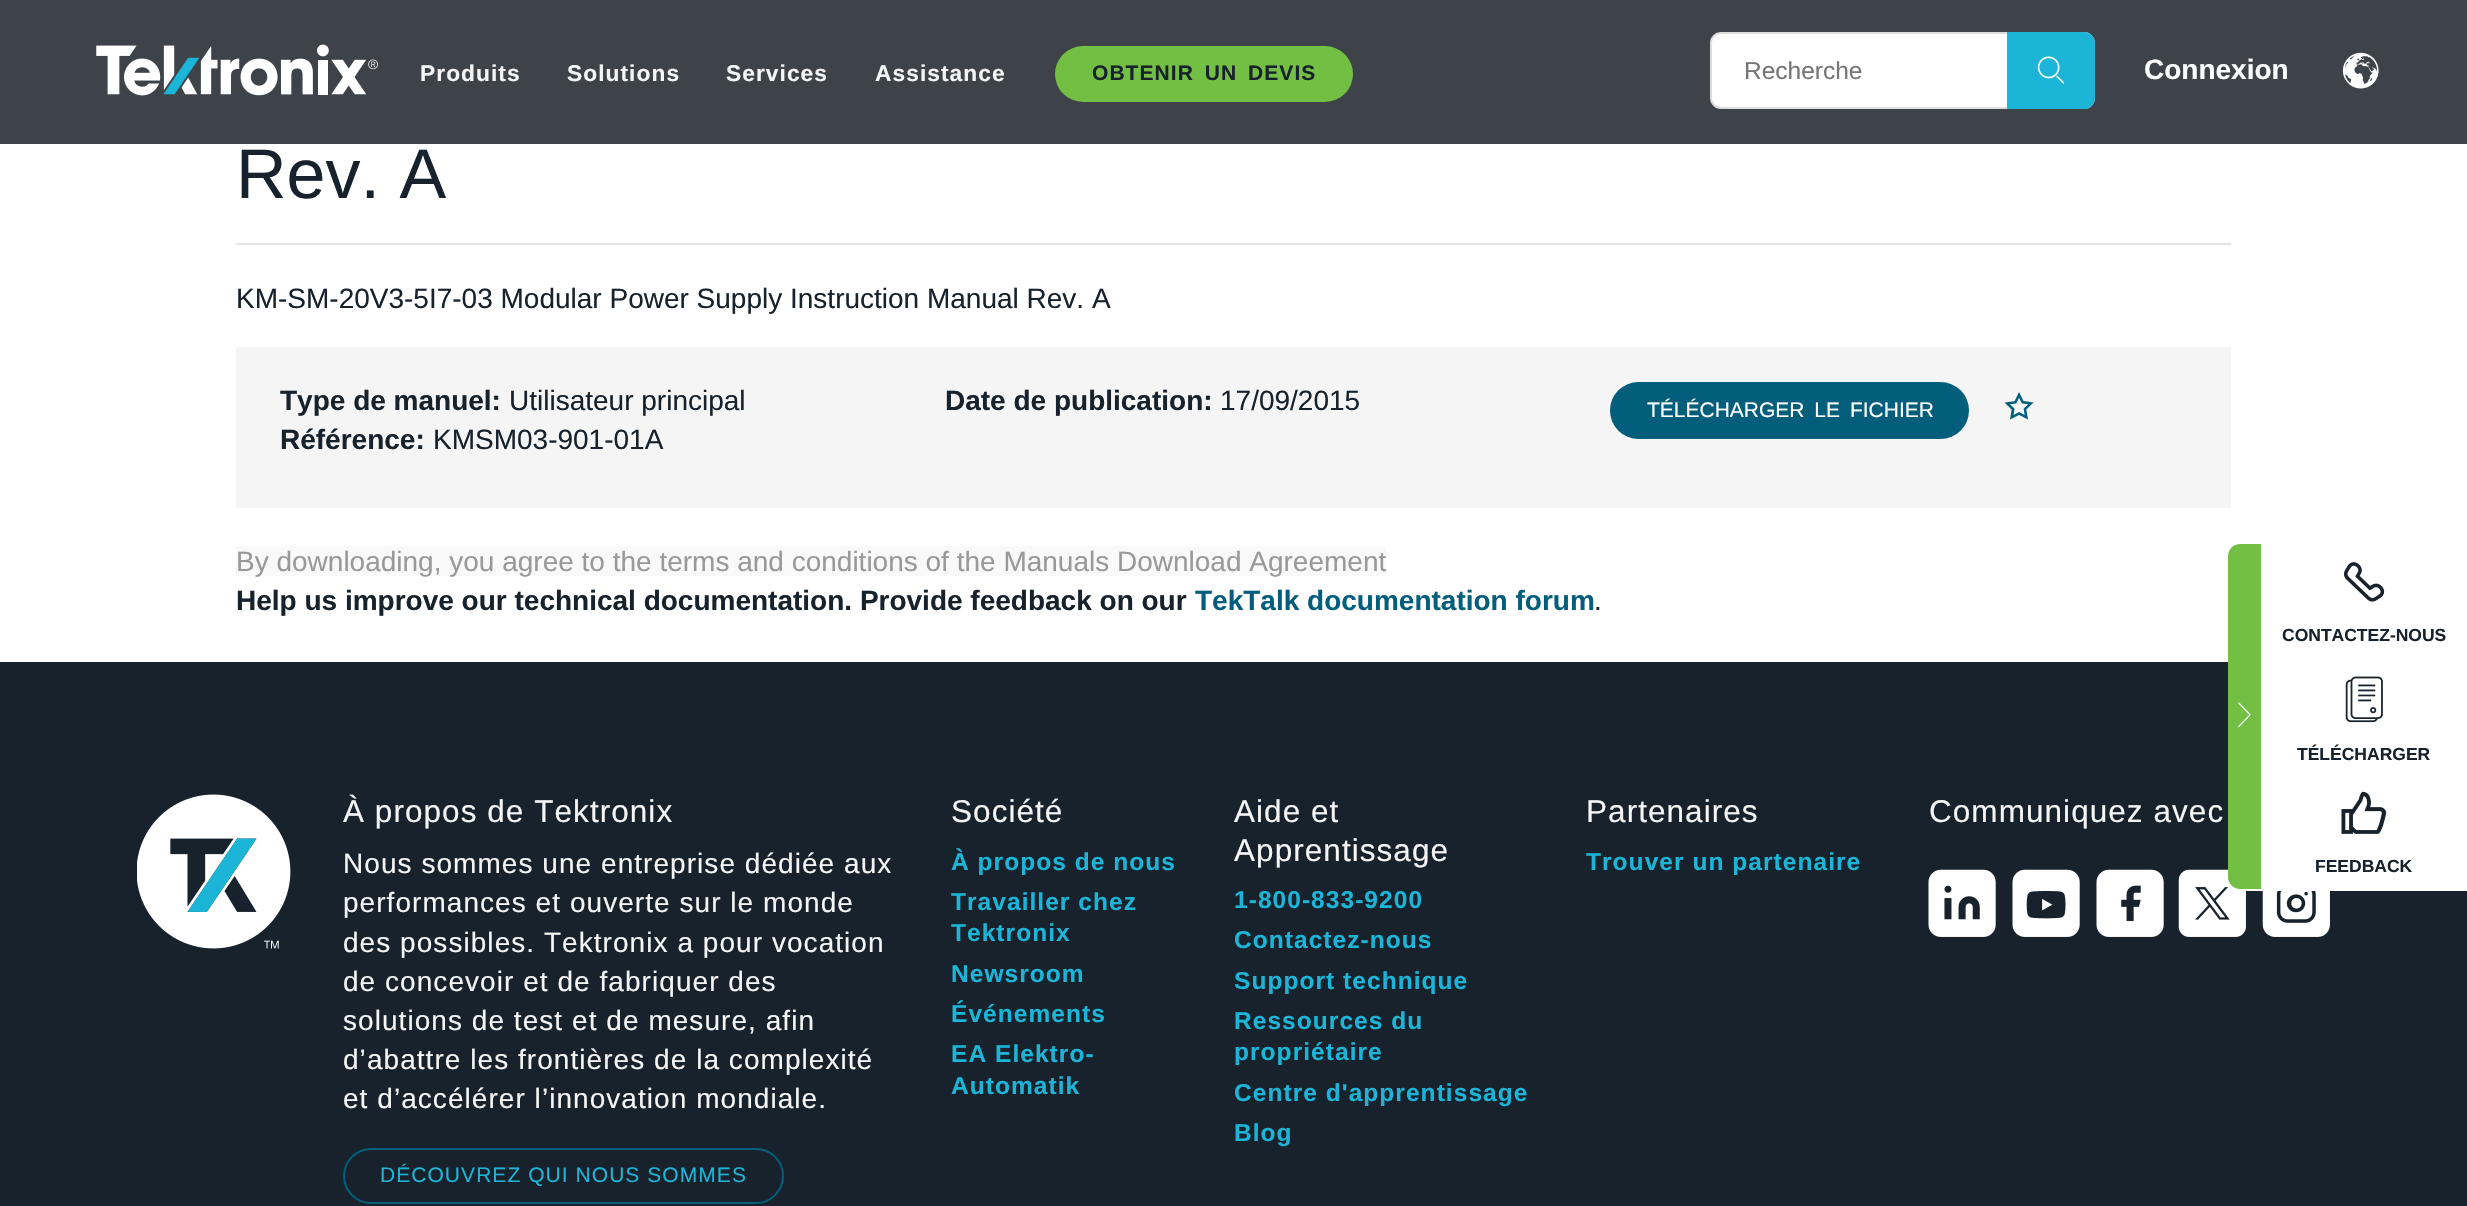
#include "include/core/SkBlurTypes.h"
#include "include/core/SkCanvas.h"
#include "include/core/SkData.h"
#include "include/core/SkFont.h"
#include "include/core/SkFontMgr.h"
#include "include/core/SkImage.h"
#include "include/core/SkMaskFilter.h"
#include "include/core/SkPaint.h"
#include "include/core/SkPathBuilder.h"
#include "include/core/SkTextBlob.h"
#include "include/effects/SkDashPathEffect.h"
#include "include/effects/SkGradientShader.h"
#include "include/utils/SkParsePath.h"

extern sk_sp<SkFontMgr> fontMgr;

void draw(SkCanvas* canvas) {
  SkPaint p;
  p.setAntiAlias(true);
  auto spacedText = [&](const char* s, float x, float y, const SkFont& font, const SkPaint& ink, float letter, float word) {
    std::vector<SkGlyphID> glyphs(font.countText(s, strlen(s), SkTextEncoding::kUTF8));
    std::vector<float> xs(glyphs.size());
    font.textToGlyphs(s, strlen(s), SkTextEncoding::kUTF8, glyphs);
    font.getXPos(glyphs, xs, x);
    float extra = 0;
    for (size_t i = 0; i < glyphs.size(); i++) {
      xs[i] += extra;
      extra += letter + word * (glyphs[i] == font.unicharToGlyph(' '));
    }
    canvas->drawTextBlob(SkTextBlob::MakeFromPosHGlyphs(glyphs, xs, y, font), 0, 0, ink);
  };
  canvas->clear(SK_ColorWHITE);
  p.setColor(SkColorSetRGB(62, 67, 74));
  canvas->drawRect(SkRect::MakeLTRB(0, 0, 2467, 144), p);
  canvas->drawImageRect(SkImages::DeferredFromEncodedData(SkData::MakeFromFileName("images/1.png")), SkRect::MakeLTRB(96, 44, 378, 96), SkSamplingOptions());
  p.setColor(SkColorSetRGB(115, 191, 68));
  canvas->drawRoundRect(SkRect::MakeLTRB(1055, 46, 1353, 102), 28, 28, p);
  p.setColor(SK_ColorWHITE);
  canvas->drawRoundRect(SkRect::MakeLTRB(1711, 33, 2094, 108), 10, 10, p);
  p.setStyle(SkPaint::kStroke_Style);
  p.setStrokeWidth(2);
  p.setColor(SkColorSetRGB(221, 221, 221));
  canvas->drawRoundRect(SkRect::MakeLTRB(1711, 33, 2094, 108), 10, 10, p);
  p.setStyle(SkPaint::kFill_Style);
  p.setColor(SkColorSetRGB(28, 181, 216));
  canvas->drawPath(SkPathBuilder().moveTo(2007, 32).lineTo(2084, 32).cubicTo(2090, 32, 2095, 37, 2095, 43).lineTo(2095, 98).cubicTo(2095, 104, 2090, 109, 2084, 109).lineTo(2007, 109).close().detach(), p);
  canvas->drawImageRect(SkImages::DeferredFromEncodedData(SkData::MakeFromFileName("images/2.png")), SkRect::MakeLTRB(2037, 56, 2064, 84), SkSamplingOptions());
  canvas->drawImageRect(SkImages::DeferredFromEncodedData(SkData::MakeFromFileName("images/3.png")), SkRect::MakeLTRB(2342, 52, 2379, 89), SkSamplingOptions());
  p.setColor(SkColorSetRGB(229, 229, 229));
  canvas->drawRect(SkRect::MakeLTRB(236, 243, 2231, 245), p);
  p.setColor(SkColorSetRGB(245, 245, 245));
  canvas->drawRect(SkRect::MakeLTRB(236, 347, 2231, 508), p);
  p.setColor(SkColorSetRGB(3, 94, 124));
  canvas->drawRoundRect(SkRect::MakeLTRB(1610, 382, 1969, 439), 28.5f, 28.5f, p);
  canvas->drawImageRect(SkImages::DeferredFromEncodedData(SkData::MakeFromFileName("images/4.png")), SkRect::MakeLTRB(2004, 392, 2034, 420), SkSamplingOptions());
  p.setColor(SkColorSetRGB(249, 249, 249));
  canvas->drawRect(SkRect::MakeLTRB(236, 546, 1386, 576), p);
  p.setColor(SkColorSetRGB(23, 34, 44));
  canvas->drawRect(SkRect::MakeLTRB(0, 662, 2467, 1206), p);
  canvas->drawImageRect(SkImages::DeferredFromEncodedData(SkData::MakeFromFileName("images/13.png")), SkRect::MakeLTRB(2178, 869, 2246, 937), SkSamplingOptions());
  p.setColor(SK_ColorWHITE);
  canvas->drawPath(SkPathBuilder().moveTo(2240, 544).lineTo(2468, 544).lineTo(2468, 891).lineTo(2240, 891).cubicTo(2233.5f, 891, 2228, 885.5f, 2228, 879).lineTo(2228, 556).cubicTo(2228, 549.5f, 2233.5f, 544, 2240, 544).close().detach(), p);
  p.setColor(SkColorSetRGB(115, 191, 68));
  canvas->drawPath(SkPathBuilder().moveTo(2240, 544).lineTo(2261, 544).lineTo(2261, 889).lineTo(2240, 889).cubicTo(2233.5f, 889, 2228, 883.5f, 2228, 877).lineTo(2228, 556).cubicTo(2228, 549.5f, 2233.5f, 544, 2240, 544).close().detach(), p);
  canvas->drawImageRect(SkImages::DeferredFromEncodedData(SkData::MakeFromFileName("images/5.png")), SkRect::MakeLTRB(2238, 702, 2251, 728), SkSamplingOptions());
  canvas->drawImageRect(SkImages::DeferredFromEncodedData(SkData::MakeFromFileName("images/6.png")), SkRect::MakeLTRB(2344, 562, 2385, 602), SkSamplingOptions());
  canvas->drawImageRect(SkImages::DeferredFromEncodedData(SkData::MakeFromFileName("images/7.png")), SkRect::MakeLTRB(2345, 676, 2383, 723), SkSamplingOptions());
  canvas->drawImageRect(SkImages::DeferredFromEncodedData(SkData::MakeFromFileName("images/8.png")), SkRect::MakeLTRB(2341, 791, 2387, 834), SkSamplingOptions());
  canvas->drawImageRect(SkImages::DeferredFromEncodedData(SkData::MakeFromFileName("images/9.png")), SkRect::MakeLTRB(137, 794, 291, 949), SkSamplingOptions());
  p.setStyle(SkPaint::kStroke_Style);
  p.setColor(SkColorSetRGB(3, 94, 124));
  canvas->drawRoundRect(SkRect::MakeLTRB(344, 1149, 783, 1203), 27, 27, p);
  canvas->drawImageRect(SkImages::DeferredFromEncodedData(SkData::MakeFromFileName("images/10.png")), SkRect::MakeLTRB(1928, 869, 1996, 937), SkSamplingOptions());
  canvas->drawImageRect(SkImages::DeferredFromEncodedData(SkData::MakeFromFileName("images/11.png")), SkRect::MakeLTRB(2012, 869, 2080, 937), SkSamplingOptions());
  canvas->drawImageRect(SkImages::DeferredFromEncodedData(SkData::MakeFromFileName("images/12.png")), SkRect::MakeLTRB(2096, 869, 2164, 937), SkSamplingOptions());
  canvas->drawImageRect(SkImages::DeferredFromEncodedData(SkData::MakeFromFileName("images/14.png")), SkRect::MakeLTRB(2262, 891, 2330, 937), SkSamplingOptions());
  SkFont font1(fontMgr->matchFamilyStyle("Liberation Sans", SkFontStyle::Bold()), 22.75f);
  font1.setSubpixel(true);
  p.setStyle(SkPaint::kFill_Style);
  p.setColor(SkColorSetRGB(245, 245, 245));
  spacedText("Produits", 420, 81, font1, p, 1.05f, 0);
  spacedText("Solutions", 567, 81, font1, p, 1.05f, 0);
  spacedText("Services", 726, 81, font1, p, 1.05f, 0);
  spacedText("Assistance", 875, 81, font1, p, 1.05f, 0);
  SkFont font2(fontMgr->matchFamilyStyle("Liberation Sans", SkFontStyle::Bold()), 21);
  font2.setSubpixel(true);
  p.setColor(SkColorSetRGB(23, 34, 44));
  spacedText("OBTENIR UN DEVIS", 1092, 80, font2, p, 1.05f, 4);
  SkFont font3(fontMgr->matchFamilyStyle("Liberation Sans", SkFontStyle::Normal()), 24.5f);
  font3.setSubpixel(true);
  p.setColor(SkColorSetRGB(117, 117, 117));
  canvas->drawString("Recherche", 1744, 79, font3, p);
  SkFont font4(fontMgr->matchFamilyStyle("Liberation Sans", SkFontStyle::Bold()), 28);
  font4.setSubpixel(true);
  p.setColor(SK_ColorWHITE);
  canvas->drawString("Connexion", 2144, 79, font4, p);
  SkFont font5(fontMgr->matchFamilyStyle("Liberation Sans", SkFontStyle::Normal()), 70);
  font5.setSubpixel(true);
  p.setColor(SkColorSetRGB(23, 34, 44));
  canvas->drawString("Rev. A", 236, 198, font5, p);
  SkFont font6(fontMgr->matchFamilyStyle("Liberation Sans", SkFontStyle::Normal()), 28);
  font6.setSubpixel(true);
  canvas->drawString("KM-SM-20V3-5I7-03 Modular Power Supply Instruction Manual Rev. A", 236, 308, font6, p);
  canvas->drawString("Type de manuel:", 280, 410, font4, p);
  canvas->drawString("Utilisateur principal", 509, 410, font6, p);
  canvas->drawString("Référence:", 280, 449, font4, p);
  canvas->drawString("KMSM03-901-01A", 433, 449, font6, p);
  canvas->drawString("Date de publication:", 945, 410, font4, p);
  canvas->drawString("17/09/2015", 1220, 410, font6, p);
  SkFont font7(fontMgr->matchFamilyStyle("Liberation Sans", SkFontStyle::Normal()), 21);
  font7.setSubpixel(true);
  p.setColor(SK_ColorWHITE);
  spacedText("TÉLÉCHARGER LE FICHIER", 1647, 417, font7, p, 0, 4);
  p.setColor(SkColorSetRGB(153, 153, 153));
  canvas->drawString("By downloading, you agree to the terms and conditions of the Manuals Download Agreement", 236, 571, font6, p);
  p.setColor(SkColorSetRGB(23, 34, 44));
  canvas->drawString("Help us improve our technical documentation. Provide feedback on our", 236, 610, font4, p);
  p.setColor(SkColorSetRGB(3, 94, 124));
  canvas->drawString("TekTalk documentation forum", 1195, 610, font4, p);
  p.setColor(SkColorSetRGB(23, 34, 44));
  canvas->drawString(".", 1594, 610, font6, p);
  SkFont font8(fontMgr->matchFamilyStyle("Liberation Sans", SkFontStyle::Bold()), 17.5f);
  font8.setSubpixel(true);
  canvas->drawString("CONTACTEZ-NOUS", 2282, 641, font8, p);
  canvas->drawString("TÉLÉCHARGER", 2297, 760, font8, p);
  canvas->drawString("FEEDBACK", 2315, 872, font8, p);
  SkFont font9(fontMgr->matchFamilyStyle("Liberation Sans", SkFontStyle::Normal()), 31.5f);
  font9.setSubpixel(true);
  p.setColor(SkColorSetRGB(245, 245, 245));
  spacedText("À propos de Tektronix", 343, 822, font9, p, 1.05f, 0);
  spacedText("Nous sommes une entreprise dédiée aux", 343, 873, font6, p, 1.05f, 0);
  spacedText("performances et ouverte sur le monde", 343, 912, font6, p, 1.05f, 0);
  spacedText("des possibles. Tektronix a pour vocation", 343, 952, font6, p, 1.05f, 0);
  spacedText("de concevoir et de fabriquer des", 343, 991, font6, p, 1.05f, 0);
  spacedText("solutions de test et de mesure, afin", 343, 1030, font6, p, 1.05f, 0);
  spacedText("d’abattre les frontières de la complexité", 343, 1069, font6, p, 1.05f, 0);
  spacedText("et d’accélérer l’innovation mondiale.", 343, 1108, font6, p, 1.05f, 0);
  p.setColor(SkColorSetRGB(28, 181, 216));
  spacedText("DÉCOUVREZ QUI NOUS SOMMES", 380, 1182, font7, p, 1.05f, 0);
  p.setColor(SkColorSetRGB(245, 245, 245));
  spacedText("Société", 951, 822, font9, p, 1.05f, 0);
  SkFont font10(fontMgr->matchFamilyStyle("Liberation Sans", SkFontStyle::Bold()), 24.5f);
  font10.setSubpixel(true);
  p.setColor(SkColorSetRGB(28, 181, 216));
  spacedText("À propos de nous", 951, 870, font10, p, 1.05f, 0);
  spacedText("Travailler chez", 951, 910, font10, p, 1.05f, 0);
  spacedText("Tektronix", 951, 941, font10, p, 1.05f, 0);
  spacedText("Newsroom", 951, 982, font10, p, 1.05f, 0);
  spacedText("Événements", 951, 1022, font10, p, 1.05f, 0);
  spacedText("EA Elektro-", 951, 1062, font10, p, 1.05f, 0);
  spacedText("Automatik", 951, 1094, font10, p, 1.05f, 0);
  p.setColor(SkColorSetRGB(245, 245, 245));
  spacedText("Aide et", 1234, 822, font9, p, 1.05f, 0);
  spacedText("Apprentissage", 1234, 861, font9, p, 1.05f, 0);
  p.setColor(SkColorSetRGB(28, 181, 216));
  spacedText("1-800-833-9200", 1234, 908, font10, p, 1.05f, 0);
  spacedText("Contactez-nous", 1234, 948, font10, p, 1.05f, 0);
  spacedText("Support technique", 1234, 989, font10, p, 1.05f, 0);
  spacedText("Ressources du", 1234, 1029, font10, p, 1.05f, 0);
  spacedText("propriétaire", 1234, 1060, font10, p, 1.05f, 0);
  spacedText("Centre d'apprentissage", 1234, 1101, font10, p, 1.05f, 0);
  spacedText("Blog", 1234, 1141, font10, p, 1.05f, 0);
  p.setColor(SkColorSetRGB(245, 245, 245));
  spacedText("Partenaires", 1586, 822, font9, p, 1.05f, 0);
  p.setColor(SkColorSetRGB(28, 181, 216));
  spacedText("Trouver un partenaire", 1586, 870, font10, p, 1.05f, 0);
  p.setColor(SkColorSetRGB(245, 245, 245));
  spacedText("Communiquez avec", 1929, 822, font9, p, 1.05f, 0);
}
